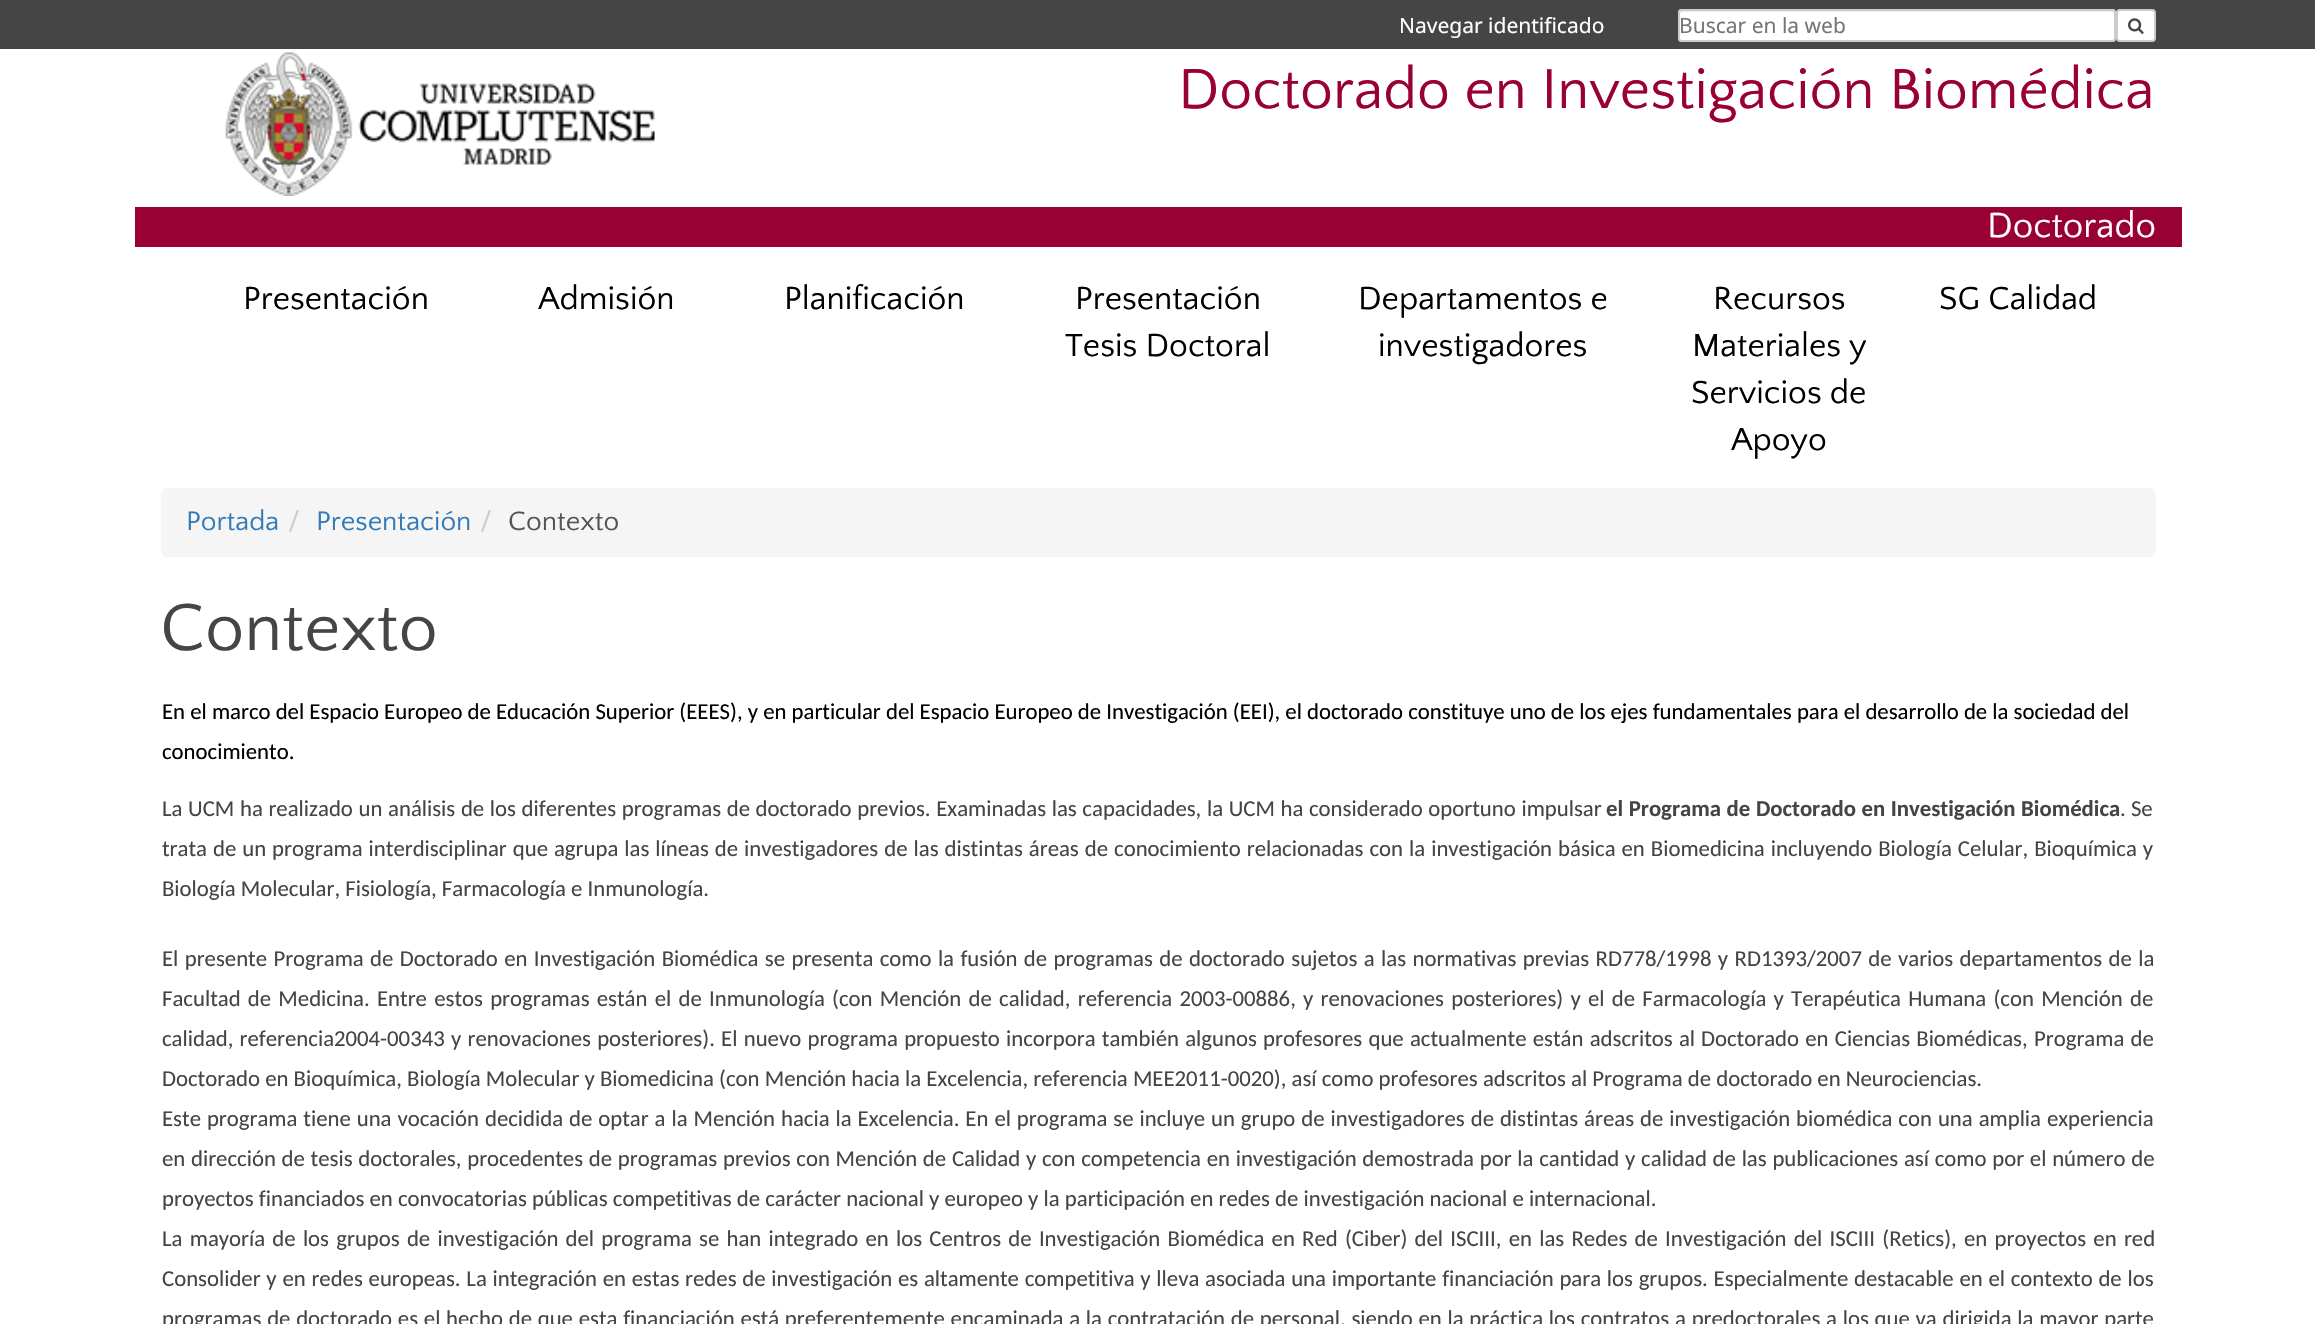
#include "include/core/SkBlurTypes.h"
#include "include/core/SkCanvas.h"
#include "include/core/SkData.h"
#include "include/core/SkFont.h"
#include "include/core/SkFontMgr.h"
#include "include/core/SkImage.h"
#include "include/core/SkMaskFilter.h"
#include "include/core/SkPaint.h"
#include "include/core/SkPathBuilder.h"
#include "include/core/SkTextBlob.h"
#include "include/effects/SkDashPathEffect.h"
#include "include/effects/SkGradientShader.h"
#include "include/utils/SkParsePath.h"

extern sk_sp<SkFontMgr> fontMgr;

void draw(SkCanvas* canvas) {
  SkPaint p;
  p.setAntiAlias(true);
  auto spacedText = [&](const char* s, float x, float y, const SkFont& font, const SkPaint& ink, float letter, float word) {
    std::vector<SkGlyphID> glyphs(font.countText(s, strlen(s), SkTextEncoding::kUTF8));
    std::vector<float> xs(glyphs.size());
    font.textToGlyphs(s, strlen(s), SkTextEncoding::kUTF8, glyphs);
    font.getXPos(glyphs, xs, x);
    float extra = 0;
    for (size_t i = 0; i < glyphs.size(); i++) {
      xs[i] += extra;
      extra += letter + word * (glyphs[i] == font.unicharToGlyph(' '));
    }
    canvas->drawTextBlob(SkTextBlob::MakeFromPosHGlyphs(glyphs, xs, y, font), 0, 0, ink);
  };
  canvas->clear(SK_ColorWHITE);
  p.setColor(SkColorSetRGB(69, 69, 69));
  canvas->drawRect(SkRect::MakeLTRB(0, 0, 2315, 49), p);
  p.setColor(SK_ColorWHITE);
  canvas->drawRoundRect(SkRect::MakeLTRB(1678, 9, 2116, 42), 4, 4, p);
  p.setColor(SkColorSetRGB(236, 236, 236));
  canvas->drawPath(SkPathBuilder().moveTo(1682, 12).lineTo(2112, 12).cubicTo(2113, 12, 2114, 13, 2114, 14).cubicTo(2114, 13, 2114, 11, 2112, 11).lineTo(1682, 11).lineTo(1680, 12).lineTo(1680, 14).cubicTo(1680, 13, 1681, 12, 1682, 12).close().detach(), p);
  p.setStyle(SkPaint::kStroke_Style);
  p.setStrokeWidth(2);
  p.setColor(SkColorSetRGB(204, 204, 204));
  canvas->drawRoundRect(SkRect::MakeLTRB(1679, 10, 2115, 41), 3, 3, p);
  p.setStyle(SkPaint::kFill_Style);
  p.setColor(SK_ColorWHITE);
  canvas->drawRoundRect(SkRect::MakeLTRB(2117, 10, 2155, 41), 3, 3, p);
  p.setStyle(SkPaint::kStroke_Style);
  p.setColor(SkColorSetRGB(204, 204, 204));
  canvas->drawRoundRect(SkRect::MakeLTRB(2117, 10, 2155, 41), 3, 3, p);
  canvas->drawImageRect(SkImages::DeferredFromEncodedData(SkData::MakeFromFileName("images/1.png")), SkRect::MakeLTRB(2128, 18, 2144, 34), SkSamplingOptions());
  canvas->drawImageRect(SkImages::DeferredFromEncodedData(SkData::MakeFromFileName("images/2.png")), SkRect::MakeLTRB(225, 52, 655, 196), SkSamplingOptions());
  p.setStyle(SkPaint::kFill_Style);
  p.setColor(SkColorSetRGB(153, 0, 51));
  canvas->drawRect(SkRect::MakeLTRB(135, 207, 2182, 247), p);
  p.setColor(SkColorSetRGB(245, 245, 245));
  canvas->drawRoundRect(SkRect::MakeLTRB(161, 488, 2156, 557), 7, 7, p);
  SkFont font1(fontMgr->matchFamilyStyle("Noto Sans", SkFontStyle::Normal()), 21);
  font1.setSubpixel(true);
  p.setColor(SK_ColorWHITE);
  canvas->drawString("Navegar identificado", 1399, 33, font1, p);
  p.setColor(SkColorSetRGB(117, 117, 117));
  canvas->drawString("Buscar en la web", 1679, 33, font1, p);
  SkFont font2(fontMgr->matchFamilyStyle("Quattrocento Sans", SkFontStyle::Normal()), 58.75f);
  font2.setSubpixel(true);
  p.setColor(SkColorSetRGB(153, 0, 51));
  canvas->drawString("Doctorado en Investigación Biomédica", 1178, 108, font2, p);
  SkFont font3(fontMgr->matchFamilyStyle("Quattrocento Sans", SkFontStyle::Normal()), 36.5f);
  font3.setSubpixel(true);
  p.setColor(SK_ColorWHITE);
  canvas->drawString("Doctorado", 1987, 237, font3, p);
  SkFont font4(fontMgr->matchFamilyStyle("Quattrocento Sans", SkFontStyle::Normal()), 33.5f);
  font4.setSubpixel(true);
  p.setColor(SK_ColorBLACK);
  canvas->drawString("Presentación", 243, 309, font4, p);
  canvas->drawString("Admisión", 538, 309, font4, p);
  canvas->drawString("Planificación", 784, 309, font4, p);
  canvas->drawString("Presentación", 1075, 309, font4, p);
  canvas->drawString("Tesis Doctoral", 1065, 356, font4, p);
  canvas->drawString("Departamentos e", 1358, 309, font4, p);
  canvas->drawString("investigadores", 1378, 356, font4, p);
  canvas->drawString("Recursos", 1713, 309, font4, p);
  canvas->drawString("Materiales y", 1692, 356, font4, p);
  canvas->drawString("Servicios de", 1691, 403, font4, p);
  canvas->drawString("Apoyo", 1731, 450, font4, p);
  canvas->drawString("SG Calidad", 1939, 309, font4, p);
  SkFont font5(fontMgr->matchFamilyStyle("Quattrocento Sans", SkFontStyle::Normal()), 28);
  font5.setSubpixel(true);
  p.setColor(SkColorSetRGB(51, 122, 183));
  canvas->drawString("Portada", 186, 530, font5, p);
  p.setColor(SkColorSetRGB(204, 204, 204));
  canvas->drawString("/", 288, 530, font5, p);
  p.setColor(SkColorSetRGB(51, 122, 183));
  canvas->drawString("Presentación", 316, 530, font5, p);
  p.setColor(SkColorSetRGB(204, 204, 204));
  canvas->drawString("/", 480, 530, font5, p);
  p.setColor(SkColorSetRGB(85, 83, 84));
  canvas->drawString("Contexto", 508, 530, font5, p);
  SkFont font6(fontMgr->matchFamilyStyle("Quattrocento Sans", SkFontStyle::Normal()), 70);
  font6.setSubpixel(true);
  p.setColor(SkColorSetRGB(69, 69, 69));
  canvas->drawString("Contexto", 160, 650, font6, p);
  SkFont font7(fontMgr->matchFamilyStyle("Carlito", SkFontStyle::Normal()), 22.75f);
  font7.setSubpixel(true);
  p.setColor(SK_ColorBLACK);
  canvas->drawString("En el marco del Espacio Europeo de Educación Superior (EEES), y en particular del Espacio Europeo de Investigación (EEI), el doctorado constituye uno de los ejes fundamentales para el desarrollo de la sociedad del", 162, 719, font7, p);
  canvas->drawString("conocimiento.", 162, 759, font7, p);
  p.setColor(SkColorSetRGB(69, 69, 69));
  spacedText("La UCM ha realizado un análisis de los diferentes programas de doctorado previos. Examinadas las capacidades, la UCM ha considerado oportuno impulsar", 162, 816, font7, p, 0, 0.5f);
  SkFont font8(fontMgr->matchFamilyStyle("Carlito", SkFontStyle::Bold()), 22.75f);
  font8.setSubpixel(true);
  spacedText("el Programa de Doctorado en Investigación Biomédica", 1606, 816, font8, p, 0, 0.5f);
  canvas->drawString(". Se", 2120, 816, font7, p);
  spacedText("trata de un programa interdisciplinar que agrupa las líneas de investigadores de las distintas áreas de conocimiento relacionadas con la investigación básica en Biomedicina incluyendo Biología Celular, Bioquímica y", 162, 856, font7, p, 0, 0.85f);
  canvas->drawString("Biología Molecular, Fisiología, Farmacología e Inmunología.", 162, 896, font7, p);
  spacedText("El presente Programa de Doctorado en Investigación Biomédica se presenta como la fusión de programas de doctorado sujetos a las normativas previas RD778/1998 y RD1393/2007 de varios departamentos de la", 162, 966, font7, p, 0, 1.25f);
  spacedText("Facultad de Medicina. Entre estos programas están el de Inmunología (con Mención de calidad, referencia 2003-00886, y renovaciones posteriores) y el de Farmacología y Terapéutica Humana (con Mención de", 162, 1006, font7, p, 0, 2.1f);
  spacedText("calidad, referencia", 162, 1046, font7, p, 0, 1);
  spacedText("2004-00343 y renovaciones posteriores). El nuevo programa propuesto incorpora también algunos profesores que actualmente están adscritos al", 334, 1046, font7, p, 0, 1.1f);
  spacedText("Doctorado en Ciencias Biomédicas,", 1701, 1046, font7, p, 0, 1.1f);
  spacedText("Programa de", 2034, 1046, font7, p, 0, 1);
  canvas->drawString("Doctorado en Bioquímica, Biología Molecular y Biomedicina (con Mención hacia la Excelencia, referencia MEE2011-0020), así como profesores adscritos al Programa de doctorado en Neurociencias.", 162, 1086, font7, p);
  spacedText("Este programa tiene una vocación decidida de optar a la Mención hacia la Excelencia. En el programa se incluye un grupo de investigadores de distintas áreas de investigación biomédica con una amplia experiencia", 162, 1126, font7, p, 0, 0.8f);
  spacedText("en dirección de tesis doctorales, procedentes de programas previos con Mención de Calidad y con competencia en investigación demostrada por la cantidad y calidad de las publicaciones así como por el número de", 162, 1166, font7, p, 0, 0.6f);
  canvas->drawString("proyectos financiados en convocatorias públicas competitivas de carácter nacional y europeo y la participación en redes de investigación nacional e internacional.", 162, 1206, font7, p);
  spacedText("La mayoría de los grupos de investigación del programa se han integrado en los Centros de Investigación Biomédica en Red (Ciber) del ISCIII, en las Redes de Investigación del ISCIII (Retics), en proyectos en red", 162, 1246, font7, p, 0, 2.1f);
  spacedText("Consolider y en redes europeas. La integración en estas redes de investigación es altamente competitiva y lleva asociada una importante financiación para los grupos. Especialmente destacable en el contexto de los", 162, 1286, font7, p, 0, 0.6f);
  spacedText("programas de doctorado es el hecho de que esta financiación está preferentemente encaminada a la contratación de personal, siendo en la práctica los contratos a predoctorales a los que va dirigida la mayor parte", 162, 1326, font7, p, 0, 0.6f);
}
